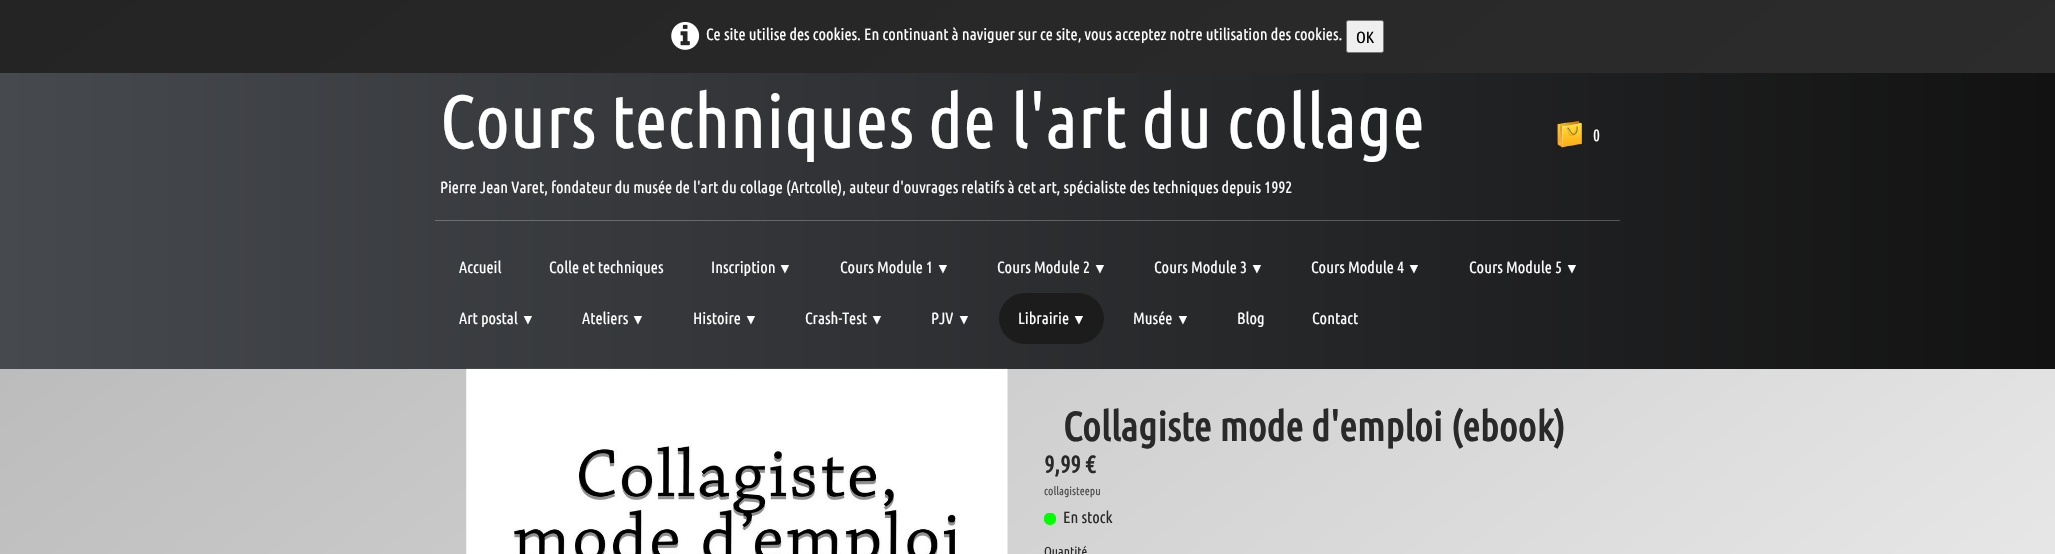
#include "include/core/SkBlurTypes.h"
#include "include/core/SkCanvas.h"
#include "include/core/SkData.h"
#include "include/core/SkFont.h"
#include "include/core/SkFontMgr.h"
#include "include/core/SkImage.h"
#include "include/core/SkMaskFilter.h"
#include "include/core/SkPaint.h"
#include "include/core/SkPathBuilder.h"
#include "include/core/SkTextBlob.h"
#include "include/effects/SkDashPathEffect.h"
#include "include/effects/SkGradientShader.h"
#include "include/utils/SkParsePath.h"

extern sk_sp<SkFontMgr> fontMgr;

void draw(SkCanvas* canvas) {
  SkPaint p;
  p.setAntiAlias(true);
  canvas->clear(SK_ColorWHITE);
  {
    const SkColor colors[] = {SkColorSetRGB(179, 179, 179), SK_ColorWHITE};
    const float stops[] = {0, 1};
    const SkPoint ends[] = {{278, -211}, {1777, 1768}};
    p.setShader(SkGradientShader::MakeLinear(ends, colors, stops, 2, SkTileMode::kClamp));
    p.setAlpha(255);
  }
  canvas->drawRect(SkRect::MakeLTRB(0, 369, 2055, 554), p);
  {
    const SkColor colors[] = {SkColorSetRGB(36, 36, 36), SkColorSetRGB(51, 51, 51)};
    const float stops[] = {0, 1};
    const SkPoint ends[] = {{278, -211}, {1777, 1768}};
    p.setShader(SkGradientShader::MakeLinear(ends, colors, stops, 2, SkTileMode::kClamp));
    p.setAlpha(255);
  }
  canvas->drawRect(SkRect::MakeLTRB(0, 0, 2055, 73), p);
  canvas->drawImageRect(SkImages::DeferredFromEncodedData(SkData::MakeFromFileName("images/1.png")), SkRect::MakeLTRB(671, 22, 700, 50), SkSamplingOptions());
  p.setShader(nullptr);
  p.setColor(SkColorSetRGB(239, 239, 239));
  canvas->drawRoundRect(SkRect::MakeLTRB(1346.5f, 20.5f, 1383.5f, 52.5f), 2, 2, p);
  p.setStyle(SkPaint::kStroke_Style);
  p.setStrokeWidth(1);
  p.setColor(SkColorSetRGB(118, 118, 118));
  canvas->drawRoundRect(SkRect::MakeLTRB(1346.5f, 20.5f, 1383.5f, 52.5f), 2, 2, p);
  p.setStyle(SkPaint::kFill_Style);
  {
    const SkColor colors[] = {SkColorSetRGB(70, 73, 78), SkColorSetRGB(18, 18, 18)};
    const float stops[] = {0, 1};
    const SkPoint ends[] = {{0, 221}, {2055, 221}};
    p.setShader(SkGradientShader::MakeLinear(ends, colors, stops, 2, SkTileMode::kClamp));
    p.setAlpha(255);
  }
  canvas->drawRect(SkRect::MakeLTRB(0, 73, 2055, 369), p);
  {
    const SkColor colors[] = {SkColorSetRGB(116, 119, 122), SkColorSetRGB(77, 77, 77)};
    const float stops[] = {0, 1};
    const SkPoint ends[] = {{0, 221}, {2055, 221}};
    p.setShader(SkGradientShader::MakeLinear(ends, colors, stops, 2, SkTileMode::kClamp));
    p.setAlpha(255);
  }
  canvas->drawRect(SkRect::MakeLTRB(435, 220, 1620, 221), p);
  canvas->drawImageRect(SkImages::DeferredFromEncodedData(SkData::MakeFromFileName("images/2.png")), SkRect::MakeLTRB(1555, 120, 1582, 148), SkSamplingOptions());
  p.setShader(nullptr);
  p.setColor(SkColorSetRGB(28, 28, 28));
  canvas->drawRoundRect(SkRect::MakeLTRB(999, 293, 1104, 344), 25.5f, 25.5f, p);
  canvas->drawImageRect(SkImages::DeferredFromEncodedData(SkData::MakeFromFileName("images/3.png")), SkRect::MakeLTRB(466, 368, 1008, 554), SkSamplingOptions());
  canvas->drawImageRect(SkImages::DeferredFromEncodedData(SkData::MakeFromFileName("images/4.png")), SkRect::MakeLTRB(1044, 513, 1056, 525), SkSamplingOptions());
  SkFont font1(fontMgr->matchFamilyStyle("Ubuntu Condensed", SkFontStyle::Normal()), 16.25f);
  font1.setSubpixel(true);
  p.setColor(SK_ColorWHITE);
  canvas->drawString("Ce site utilise des cookies. En continuant à naviguer sur ce site, vous acceptez notre utilisation des cookies.", 706, 40, font1, p);
  p.setColor(SK_ColorBLACK);
  canvas->drawString("OK", 1356, 43, font1, p);
  SkFont font2(fontMgr->matchFamilyStyle("Ubuntu Condensed", SkFontStyle::Normal()), 75);
  font2.setSubpixel(true);
  p.setColor(SK_ColorWHITE);
  canvas->drawString("Cours techniques de l'art du collage", 440, 148, font2, p);
  canvas->drawString("Pierre Jean Varet, fondateur du musée de l'art du collage (Artcolle), auteur d'ouvrages relatifs à cet art, spécialiste des techniques depuis 1992", 440, 193, font1, p);
  canvas->drawString("0", 1593, 141, font1, p);
  canvas->drawString("Accueil", 459, 273, font1, p);
  canvas->drawString("Colle et techniques", 549, 273, font1, p);
  canvas->drawString("Inscription", 711, 273, font1, p);
  SkFont font3(fontMgr->matchFamilyStyle("Liberation Serif", SkFontStyle::Normal()), 14);
  font3.setSubpixel(true);
  canvas->drawString("▼", 778, 273, font3, p);
  canvas->drawString("Cours Module 1", 840, 273, font1, p);
  canvas->drawString("▼", 936, 273, font3, p);
  canvas->drawString("Cours Module 2", 997, 273, font1, p);
  canvas->drawString("▼", 1093, 273, font3, p);
  canvas->drawString("Cours Module 3", 1154, 273, font1, p);
  canvas->drawString("▼", 1250, 273, font3, p);
  canvas->drawString("Cours Module 4", 1311, 273, font1, p);
  canvas->drawString("▼", 1407, 273, font3, p);
  canvas->drawString("Cours Module 5", 1469, 273, font1, p);
  canvas->drawString("▼", 1565, 273, font3, p);
  canvas->drawString("Art postal", 459, 324, font1, p);
  canvas->drawString("▼", 521, 324, font3, p);
  canvas->drawString("Ateliers", 582, 324, font1, p);
  canvas->drawString("▼", 631, 324, font3, p);
  canvas->drawString("Histoire", 693, 324, font1, p);
  canvas->drawString("▼", 744, 324, font3, p);
  canvas->drawString("Crash-Test", 805, 324, font1, p);
  canvas->drawString("▼", 870, 324, font3, p);
  canvas->drawString("PJV", 931, 324, font1, p);
  canvas->drawString("▼", 957, 324, font3, p);
  canvas->drawString("Librairie", 1018, 324, font1, p);
  canvas->drawString("▼", 1072, 324, font3, p);
  canvas->drawString("Musée", 1133, 324, font1, p);
  canvas->drawString("▼", 1176, 324, font3, p);
  canvas->drawString("Blog", 1237, 324, font1, p);
  canvas->drawString("Contact", 1312, 324, font1, p);
  SkFont font4(fontMgr->matchFamilyStyle("Ubuntu Condensed", SkFontStyle::Bold()), 40.6f);
  font4.setSubpixel(true);
  p.setColor(SkColorSetRGB(41, 41, 41));
  canvas->drawString("Collagiste mode d'emploi (ebook)", 1063, 441, font4, p);
  SkFont font5(fontMgr->matchFamilyStyle("Ubuntu Condensed", SkFontStyle::Bold()), 24);
  font5.setSubpixel(true);
  canvas->drawString("9,99 €", 1044, 473, font5, p);
  SkFont font6(fontMgr->matchFamilyStyle("Ubuntu Condensed", SkFontStyle::Normal()), 11.5f);
  font6.setSubpixel(true);
  p.setColor(SkColorSetRGB(75, 75, 75));
  canvas->drawString("collagisteepu", 1044, 495, font6, p);
  p.setColor(SkColorSetRGB(41, 41, 41));
  canvas->drawString("En stock", 1063, 523, font1, p);
  SkFont font7(fontMgr->matchFamilyStyle("Ubuntu Condensed", SkFontStyle::Normal()), 13);
  font7.setSubpixel(true);
  canvas->drawString("Quantité", 1044, 556, font7, p);
}
